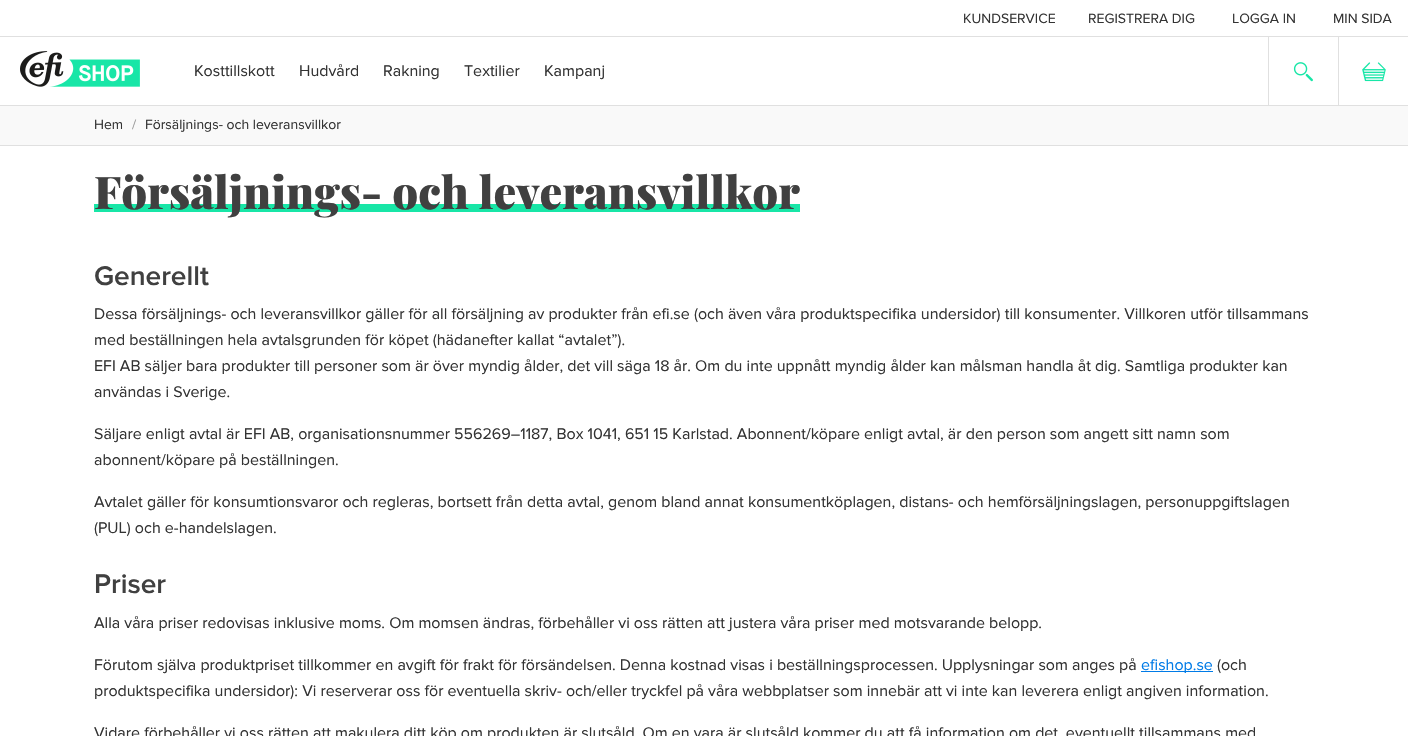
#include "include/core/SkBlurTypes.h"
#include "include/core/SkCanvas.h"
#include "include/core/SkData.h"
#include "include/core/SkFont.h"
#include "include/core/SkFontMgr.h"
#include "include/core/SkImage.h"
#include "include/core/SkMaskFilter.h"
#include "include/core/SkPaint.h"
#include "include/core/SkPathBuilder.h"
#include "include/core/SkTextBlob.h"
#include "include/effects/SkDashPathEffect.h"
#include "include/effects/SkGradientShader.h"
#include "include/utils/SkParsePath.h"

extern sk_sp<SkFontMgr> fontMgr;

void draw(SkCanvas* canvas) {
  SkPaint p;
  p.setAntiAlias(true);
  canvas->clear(SK_ColorWHITE);
  p.setColor(SkColorSetRGB(224, 224, 224));
  canvas->drawRect(SkRect::MakeLTRB(0, 36, 1408, 37), p);
  canvas->drawRect(SkRect::MakeLTRB(0, 105, 1408, 106), p);
  canvas->drawImageRect(SkImages::DeferredFromEncodedData(SkData::MakeFromFileName("images/1.png")), SkRect::MakeLTRB(20, 51, 140, 87), SkSamplingOptions());
  canvas->drawRect(SkRect::MakeLTRB(1268, 37, 1269, 106), p);
  canvas->drawImageRect(SkImages::DeferredFromEncodedData(SkData::MakeFromFileName("images/2.png")), SkRect::MakeLTRB(1293, 62, 1313, 82), SkSamplingOptions());
  canvas->drawRect(SkRect::MakeLTRB(1338, 37, 1339, 106), p);
  canvas->drawImageRect(SkImages::DeferredFromEncodedData(SkData::MakeFromFileName("images/3.png")), SkRect::MakeLTRB(1362, 62, 1386, 82), SkSamplingOptions());
  p.setColor(SkColorSetRGB(249, 249, 249));
  canvas->drawRect(SkRect::MakeLTRB(0, 106, 1408, 145), p);
  p.setColor(SkColorSetRGB(224, 224, 224));
  canvas->drawRect(SkRect::MakeLTRB(0, 145, 1408, 146), p);
  p.setColor(SkColorSetRGB(24, 230, 167));
  canvas->drawRect(SkRect::MakeLTRB(94, 204, 800, 212), p);
  p.setColor(SkColorSetRGB(0, 123, 231));
  canvas->drawRect(SkRect::MakeLTRB(1141, 671, 1213, 672), p);
  SkFont font1(fontMgr->matchFamilyStyle("Proxima Nova", SkFontStyle::Normal()), 14);
  font1.setSubpixel(true);
  p.setColor(SkColorSetRGB(51, 51, 51));
  canvas->drawString("KUNDSERVICE", 963, 23, font1, p);
  canvas->drawString("REGISTRERA DIG", 1088, 23, font1, p);
  canvas->drawString("LOGGA IN", 1232, 23, font1, p);
  canvas->drawString("MIN SIDA", 1333, 23, font1, p);
  SkFont font2(fontMgr->matchFamilyStyle("Proxima Nova", SkFontStyle::Normal()), 16);
  font2.setSubpixel(true);
  canvas->drawString("Kosttillskott", 194, 76, font2, p);
  canvas->drawString("Hudvård", 299, 76, font2, p);
  canvas->drawString("Rakning", 383, 76, font2, p);
  canvas->drawString("Textilier", 464, 76, font2, p);
  canvas->drawString("Kampanj", 544, 76, font2, p);
  canvas->drawString("Hem", 94, 129, font1, p);
  p.setColor(SkColorSetRGB(153, 153, 153));
  canvas->drawString("/", 132, 129, font1, p);
  p.setColor(SkColorSetRGB(51, 51, 51));
  canvas->drawString("Försäljnings- och leveransvillkor", 145, 129, font1, p);
  SkFont font3(fontMgr->matchFamilyStyle("Playfair Display", SkFontStyle(900, SkFontStyle::kNormal_Width, SkFontStyle::kUpright_Slant)), 45);
  font3.setSubpixel(true);
  p.setColor(SkColorSetRGB(64, 64, 64));
  canvas->drawString("Försäljnings- och leveransvillkor", 94, 209, font3, p);
  SkFont font4(fontMgr->matchFamilyStyle("Proxima Nova", SkFontStyle(600, SkFontStyle::kNormal_Width, SkFontStyle::kUpright_Slant)), 28);
  font4.setSubpixel(true);
  canvas->drawString("Generellt", 94, 285, font4, p);
  p.setColor(SkColorSetRGB(51, 51, 51));
  canvas->drawString("Dessa försäljnings- och leveransvillkor gäller för all försäljning av produkter från efi.se (och även våra produktspecifika undersidor) till konsumenter. Villkoren utför tillsammans", 94, 319, font2, p);
  canvas->drawString("med beställningen hela avtalsgrunden för köpet (hädanefter kallat “avtalet”).", 94, 345, font2, p);
  canvas->drawString("EFI AB säljer bara produkter till personer som är över myndig ålder, det vill säga 18 år. Om du inte uppnått myndig ålder kan målsman handla åt dig. Samtliga produkter kan", 94, 371, font2, p);
  canvas->drawString("användas i Sverige.", 94, 397, font2, p);
  canvas->drawString("Säljare enligt avtal är EFI AB, organisationsnummer 556269–1187, Box 1041, 651 15 Karlstad. Abonnent/köpare enligt avtal, är den person som angett sitt namn som", 94, 439, font2, p);
  canvas->drawString("abonnent/köpare på beställningen.", 94, 465, font2, p);
  canvas->drawString("Avtalet gäller för konsumtionsvaror och regleras, bortsett från detta avtal, genom bland annat konsumentköplagen, distans- och hemförsäljningslagen, personuppgiftslagen", 94, 507, font2, p);
  canvas->drawString("(PUL) och e-handelslagen.", 94, 533, font2, p);
  p.setColor(SkColorSetRGB(64, 64, 64));
  canvas->drawString("Priser", 94, 593, font4, p);
  p.setColor(SkColorSetRGB(51, 51, 51));
  canvas->drawString("Alla våra priser redovisas inklusive moms. Om momsen ändras, förbehåller vi oss rätten att justera våra priser med motsvarande belopp.", 94, 628, font2, p);
  canvas->drawString("Förutom själva produktpriset tillkommer en avgift för frakt för försändelsen. Denna kostnad visas i beställningsprocessen. Upplysningar som anges på", 94, 670, font2, p);
  p.setColor(SkColorSetRGB(0, 123, 231));
  canvas->drawString("efishop.se", 1141, 670, font2, p);
  p.setColor(SkColorSetRGB(51, 51, 51));
  canvas->drawString("(och", 1217, 670, font2, p);
  canvas->drawString("produktspecifika undersidor): Vi reserverar oss för eventuella skriv- och/eller tryckfel på våra webbplatser som innebär att vi inte kan leverera enligt angiven information.", 94, 696, font2, p);
  canvas->drawString("Vidare förbehåller vi oss rätten att makulera ditt köp om produkten är slutsåld. Om en vara är slutsåld kommer du att få information om det, eventuellt tillsammans med", 94, 738, font2, p);
}
